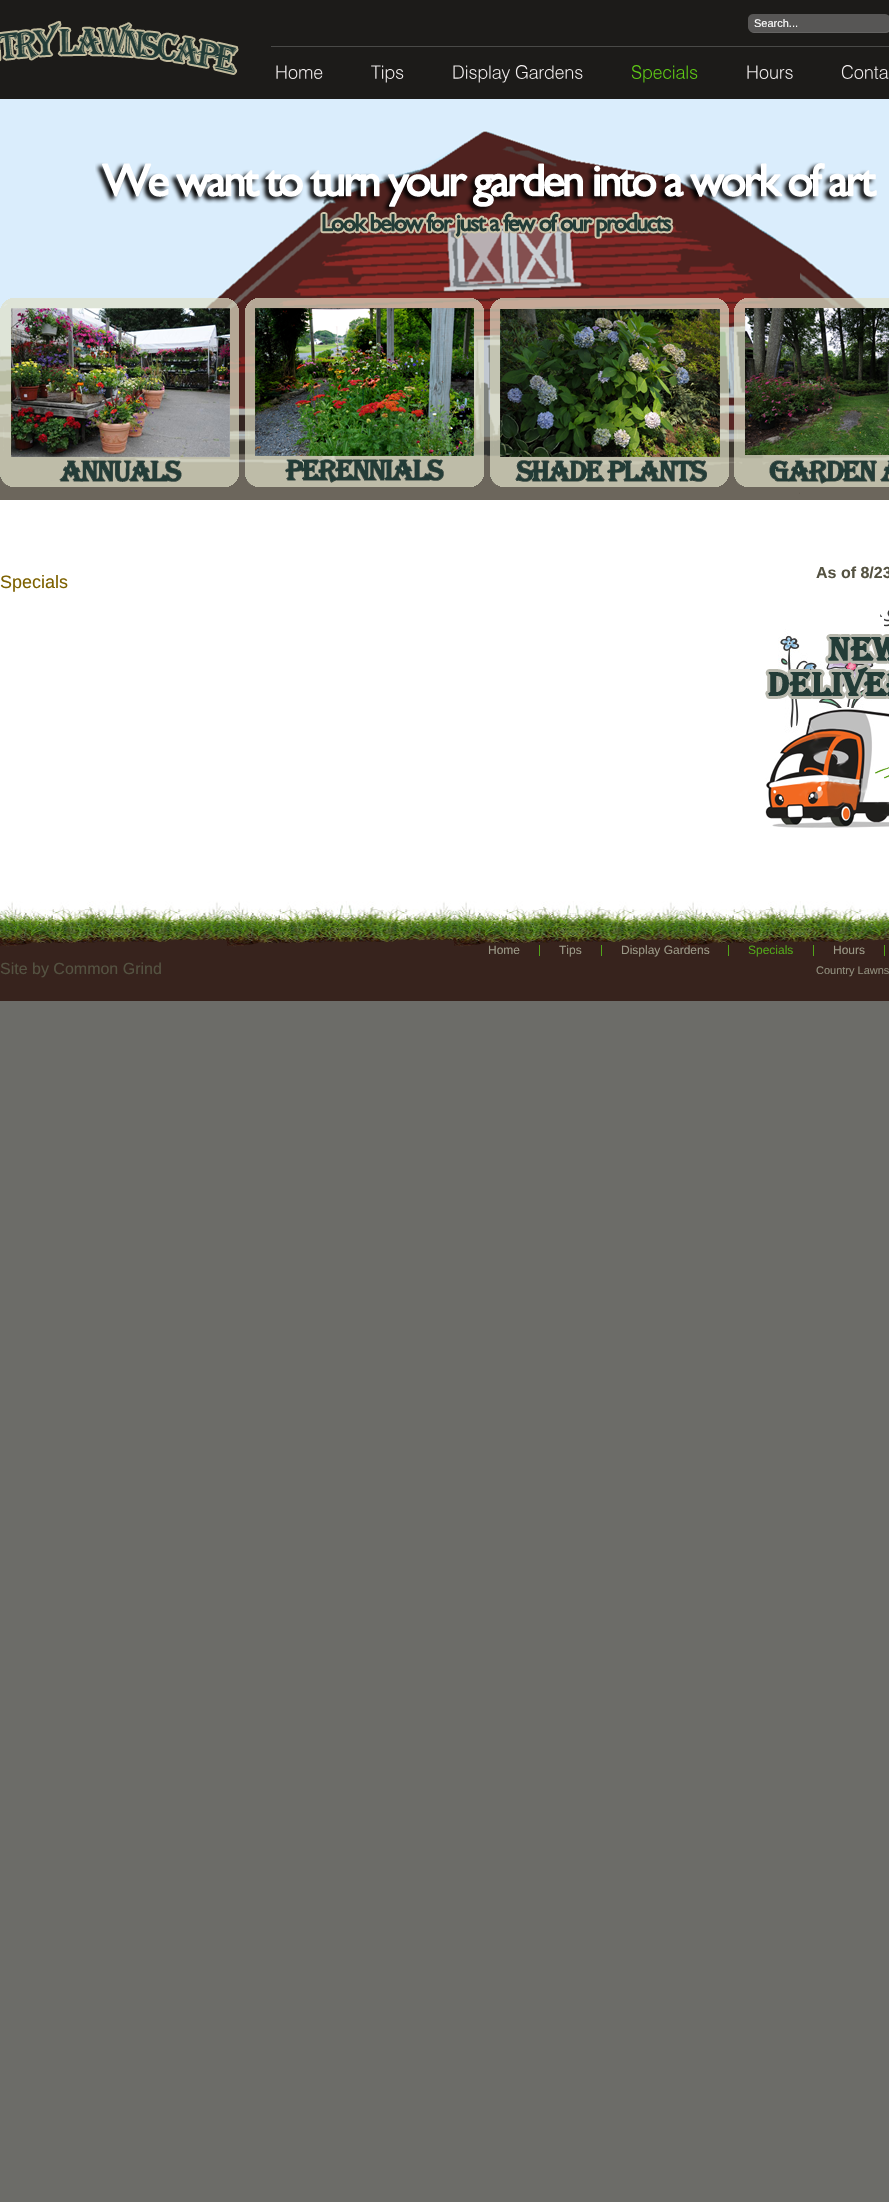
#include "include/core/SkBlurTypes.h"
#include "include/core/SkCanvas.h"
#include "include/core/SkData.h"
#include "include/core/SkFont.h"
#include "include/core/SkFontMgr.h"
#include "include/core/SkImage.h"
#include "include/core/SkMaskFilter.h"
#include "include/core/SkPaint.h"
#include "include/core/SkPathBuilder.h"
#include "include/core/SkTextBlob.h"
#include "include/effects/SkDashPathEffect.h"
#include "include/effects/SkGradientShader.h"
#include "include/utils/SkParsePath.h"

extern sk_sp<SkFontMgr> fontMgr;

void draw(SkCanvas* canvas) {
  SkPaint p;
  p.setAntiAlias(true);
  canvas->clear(SkColorSetRGB(108, 108, 104));
  p.setColor(SkColorSetRGB(28, 27, 25));
  canvas->drawRect(SkRect::MakeLTRB(0, 0, 889, 99), p);
  canvas->drawImageRect(SkImages::DeferredFromEncodedData(SkData::MakeFromFileName("images/1.png")), SkRect::MakeLTRB(0, 20, 239, 75), SkSamplingOptions());
  canvas->drawImageRect(SkImages::DeferredFromEncodedData(SkData::MakeFromFileName("images/2.png")), SkRect::MakeLTRB(748, 14, 889, 33), SkSamplingOptions());
  p.setColor(SkColorSetRGB(73, 73, 71));
  canvas->drawRect(SkRect::MakeLTRB(271, 46, 889, 47), p);
  canvas->drawImageRect(SkImages::DeferredFromEncodedData(SkData::MakeFromFileName("images/3.png")), SkRect::MakeLTRB(276, 65, 323, 79), SkSamplingOptions());
  canvas->drawImageRect(SkImages::DeferredFromEncodedData(SkData::MakeFromFileName("images/4.png")), SkRect::MakeLTRB(371, 65, 404, 83), SkSamplingOptions());
  canvas->drawImageRect(SkImages::DeferredFromEncodedData(SkData::MakeFromFileName("images/5.png")), SkRect::MakeLTRB(453, 65, 510, 83), SkSamplingOptions());
  canvas->drawImageRect(SkImages::DeferredFromEncodedData(SkData::MakeFromFileName("images/6.png")), SkRect::MakeLTRB(515, 65, 583, 79), SkSamplingOptions());
  canvas->drawImageRect(SkImages::DeferredFromEncodedData(SkData::MakeFromFileName("images/7.png")), SkRect::MakeLTRB(631, 65, 698, 83), SkSamplingOptions());
  canvas->drawImageRect(SkImages::DeferredFromEncodedData(SkData::MakeFromFileName("images/8.png")), SkRect::MakeLTRB(747, 65, 793, 79), SkSamplingOptions());
  canvas->drawImageRect(SkImages::DeferredFromEncodedData(SkData::MakeFromFileName("images/9.png")), SkRect::MakeLTRB(841, 65, 889, 79), SkSamplingOptions());
  canvas->drawImageRect(SkImages::DeferredFromEncodedData(SkData::MakeFromFileName("images/10.png")), SkRect::MakeLTRB(0, 99, 889, 500), SkSamplingOptions());
  canvas->drawImageRect(SkImages::DeferredFromEncodedData(SkData::MakeFromFileName("images/11.png")), SkRect::MakeLTRB(0, 130, 889, 494), SkSamplingOptions());
  canvas->drawImageRect(SkImages::DeferredFromEncodedData(SkData::MakeFromFileName("images/12.png")), SkRect::MakeLTRB(95, 162, 877, 239), SkSamplingOptions());
  canvas->drawImageRect(SkImages::DeferredFromEncodedData(SkData::MakeFromFileName("images/13.png")), SkRect::MakeLTRB(0, 298, 239, 487), SkSamplingOptions());
  canvas->drawImageRect(SkImages::DeferredFromEncodedData(SkData::MakeFromFileName("images/14.png")), SkRect::MakeLTRB(245, 298, 484, 487), SkSamplingOptions());
  canvas->drawImageRect(SkImages::DeferredFromEncodedData(SkData::MakeFromFileName("images/15.png")), SkRect::MakeLTRB(490, 298, 729, 487), SkSamplingOptions());
  canvas->drawImageRect(SkImages::DeferredFromEncodedData(SkData::MakeFromFileName("images/16.png")), SkRect::MakeLTRB(734, 298, 889, 487), SkSamplingOptions());
  p.setColor(SK_ColorWHITE);
  canvas->drawRect(SkRect::MakeLTRB(0, 500, 889, 901), p);
  canvas->drawImageRect(SkImages::DeferredFromEncodedData(SkData::MakeFromFileName("images/17.png")), SkRect::MakeLTRB(765, 610, 889, 828), SkSamplingOptions());
  canvas->drawImageRect(SkImages::DeferredFromEncodedData(SkData::MakeFromFileName("images/18.png")), SkRect::MakeLTRB(0, 901, 889, 1001), SkSamplingOptions());
  p.setColor(SkColorSetRGB(82, 165, 26));
  canvas->drawRect(SkRect::MakeLTRB(539, 945, 540, 956), p);
  canvas->drawRect(SkRect::MakeLTRB(601, 945, 602, 956), p);
  canvas->drawRect(SkRect::MakeLTRB(728, 945, 729, 956), p);
  canvas->drawRect(SkRect::MakeLTRB(813, 945, 814, 956), p);
  canvas->drawRect(SkRect::MakeLTRB(884, 945, 885, 956), p);
  SkFont font1(fontMgr->matchFamilyStyle("Liberation Sans", SkFontStyle::Normal()), 11);
  font1.setSubpixel(true);
  p.setColor(SK_ColorWHITE);
  canvas->drawString("Search...", 754, 27, font1, p);
  SkFont font2(fontMgr->matchFamilyStyle("Liberation Sans", SkFontStyle::Bold()), 16);
  font2.setSubpixel(true);
  p.setColor(SkColorSetRGB(84, 82, 65));
  canvas->drawString("As of 8/23", 816, 578, font2, p);
  SkFont font3(fontMgr->matchFamilyStyle("Liberation Sans", SkFontStyle::Normal()), 18);
  font3.setSubpixel(true);
  p.setColor(SkColorSetRGB(125, 97, 0));
  canvas->drawString("Specials", 0, 588, font3, p);
  SkFont font4(fontMgr->matchFamilyStyle("Liberation Sans", SkFontStyle::Normal()), 16);
  font4.setSubpixel(true);
  p.setColor(SkColorSetRGB(84, 82, 65));
  canvas->drawString("Site by Common Grind", 0, 974, font4, p);
  SkFont font5(fontMgr->matchFamilyStyle("Liberation Sans", SkFontStyle::Normal()), 12);
  font5.setSubpixel(true);
  p.setColor(SkColorSetRGB(155, 153, 135));
  canvas->drawString("Home", 488, 954, font5, p);
  canvas->drawString("Tips", 559, 954, font5, p);
  canvas->drawString("Display Gardens", 621, 954, font5, p);
  p.setColor(SkColorSetRGB(82, 165, 26));
  canvas->drawString("Specials", 748, 954, font5, p);
  p.setColor(SkColorSetRGB(155, 153, 135));
  canvas->drawString("Hours", 833, 954, font5, p);
  p.setColor(SkColorSetRGB(143, 141, 124));
  canvas->drawString("Country Lawns", 816, 974, font1, p);
}
